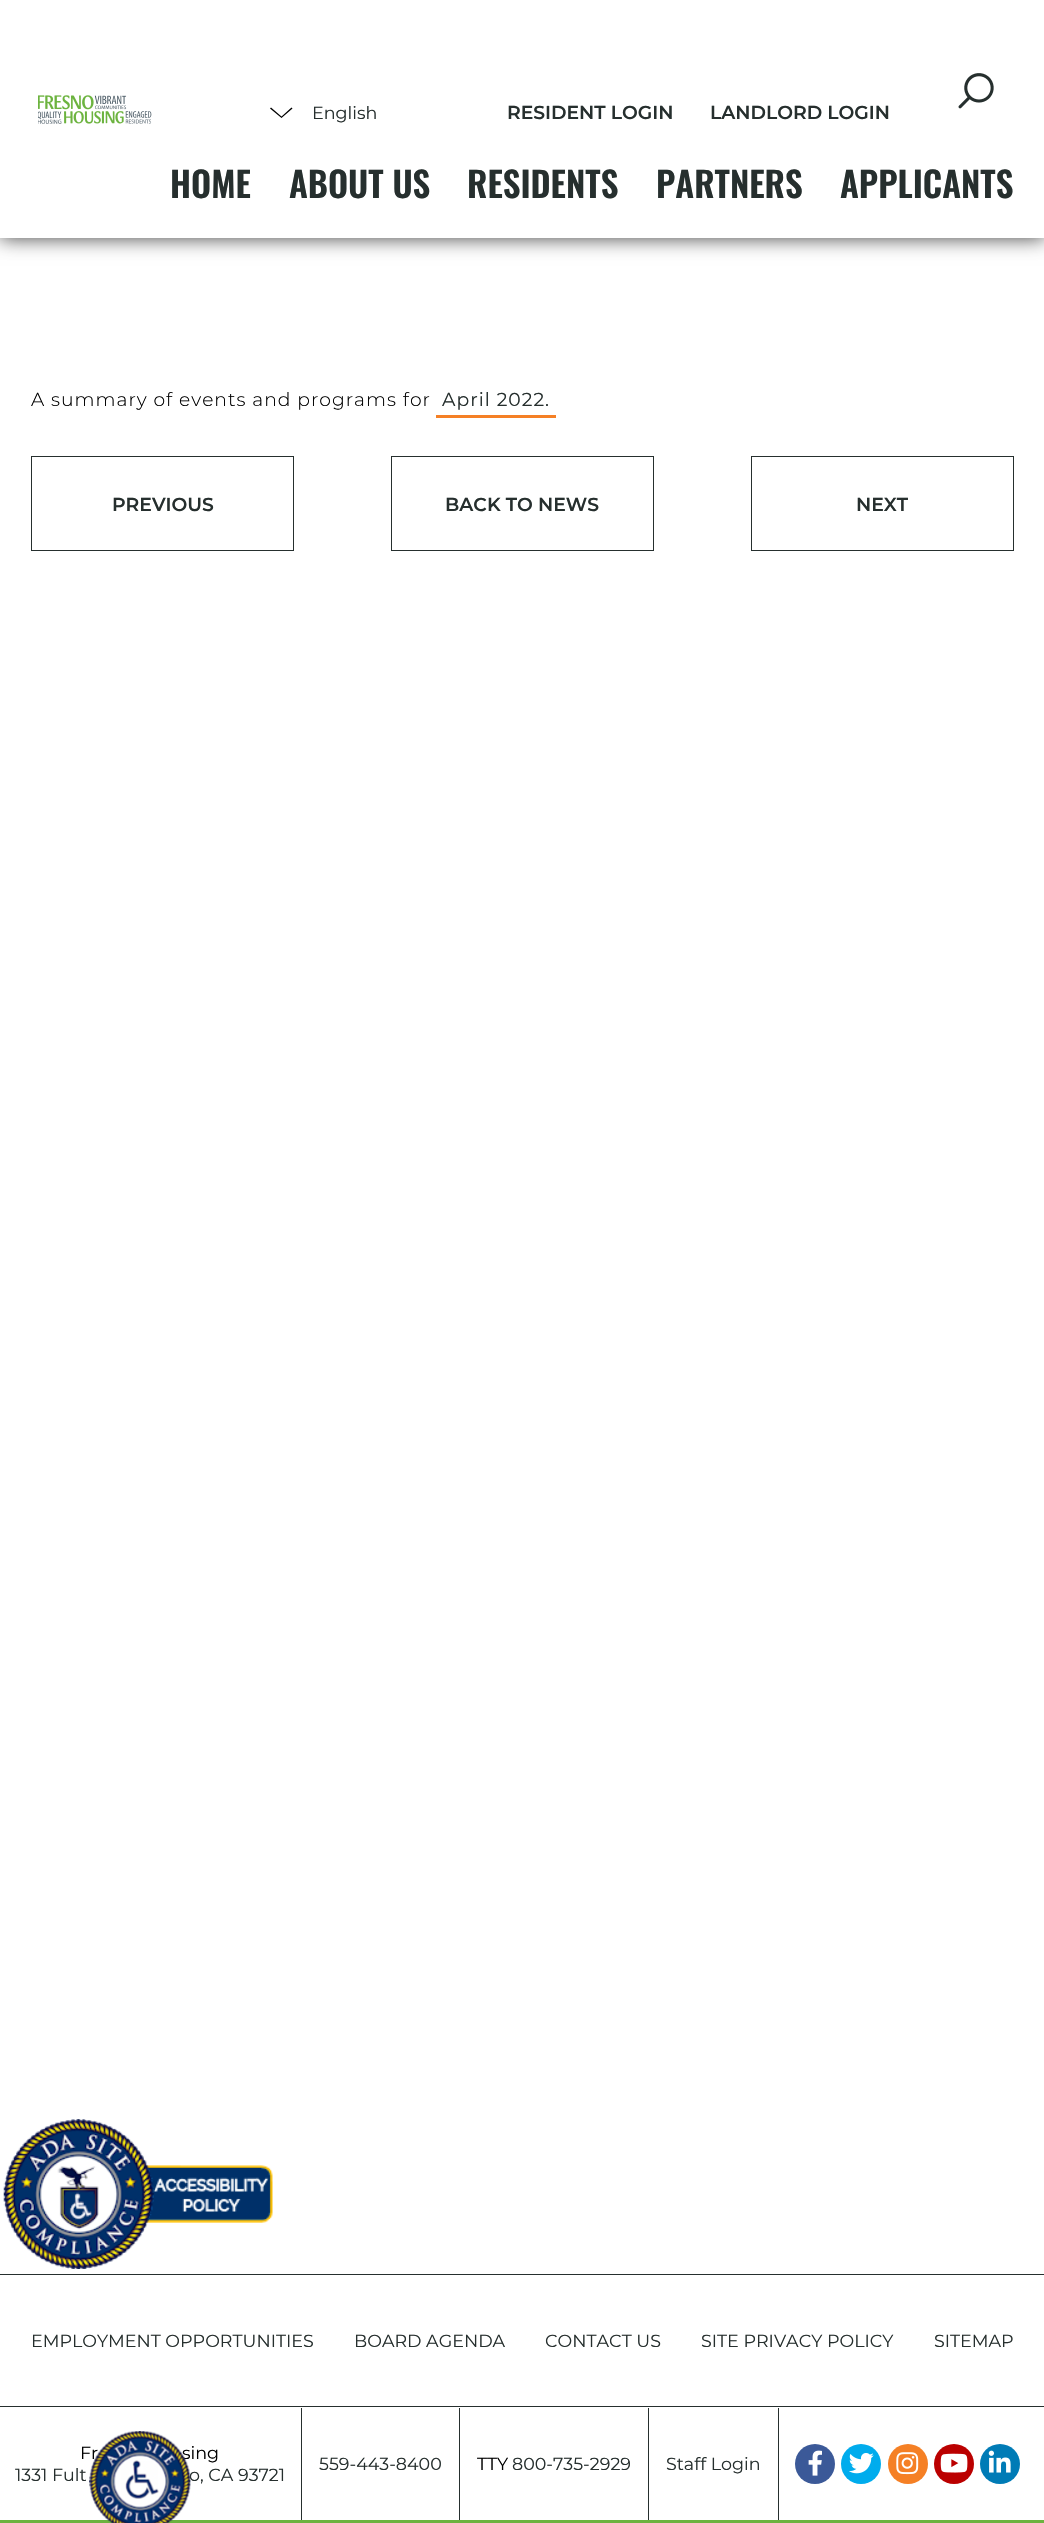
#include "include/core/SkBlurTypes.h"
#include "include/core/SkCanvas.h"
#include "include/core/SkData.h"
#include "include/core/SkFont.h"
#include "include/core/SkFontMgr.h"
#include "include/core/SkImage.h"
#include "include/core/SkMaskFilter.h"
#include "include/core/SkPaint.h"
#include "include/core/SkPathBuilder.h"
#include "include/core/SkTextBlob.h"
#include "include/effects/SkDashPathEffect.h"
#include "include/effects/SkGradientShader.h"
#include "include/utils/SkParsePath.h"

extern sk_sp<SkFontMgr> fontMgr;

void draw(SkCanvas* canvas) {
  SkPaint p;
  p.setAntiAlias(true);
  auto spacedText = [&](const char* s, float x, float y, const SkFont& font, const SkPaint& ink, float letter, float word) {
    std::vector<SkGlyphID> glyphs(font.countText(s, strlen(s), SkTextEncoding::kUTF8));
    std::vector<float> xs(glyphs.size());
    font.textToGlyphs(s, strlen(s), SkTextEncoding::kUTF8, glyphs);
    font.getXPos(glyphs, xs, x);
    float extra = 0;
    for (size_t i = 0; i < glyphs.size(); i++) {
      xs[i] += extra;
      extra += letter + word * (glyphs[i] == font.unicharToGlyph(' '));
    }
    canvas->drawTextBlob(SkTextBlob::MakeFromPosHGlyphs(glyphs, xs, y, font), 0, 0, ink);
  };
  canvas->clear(SK_ColorWHITE);
  p.setColor(SkColorSetARGB(191, 0, 0, 0));
  p.setMaskFilter(SkMaskFilter::MakeBlur(kNormal_SkBlurStyle, 9.5f));
  canvas->drawRect(SkRect::MakeLTRB(0, 0, 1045, 238), p);
  p.setMaskFilter(nullptr);
  p.setColor(SK_ColorWHITE);
  canvas->drawRect(SkRect::MakeLTRB(0, 0, 1044, 238), p);
  canvas->drawImageRect(SkImages::DeferredFromEncodedData(SkData::MakeFromFileName("images/1.png")), SkRect::MakeLTRB(38, 95, 152, 124), SkSamplingOptions());
  canvas->drawImageRect(SkImages::DeferredFromEncodedData(SkData::MakeFromFileName("images/2.png")), SkRect::MakeLTRB(958, 73, 994, 109), SkSamplingOptions());
  p.setColor(SK_ColorBLACK);
  canvas->drawPath(SkPathBuilder().moveTo(281.5f, 118).lineTo(270, 108.5f).lineTo(271, 107.5f).lineTo(281.5f, 116.5f).lineTo(291.5f, 107.5f).lineTo(292.5f, 108.5f).close().detach(), p);
  p.setColor(SkColorSetRGB(245, 128, 37));
  canvas->drawRect(SkRect::MakeLTRB(436, 415, 556, 418), p);
  p.setStyle(SkPaint::kStroke_Style);
  p.setStrokeWidth(1);
  p.setColor(SkColorSetRGB(38, 47, 46));
  canvas->drawRect(SkRect::MakeLTRB(31.5f, 456.5f, 293.5f, 550.5f), p);
  canvas->drawRect(SkRect::MakeLTRB(391.5f, 456.5f, 653.5f, 550.5f), p);
  canvas->drawRect(SkRect::MakeLTRB(751.5f, 456.5f, 1013.5f, 550.5f), p);
  canvas->drawImageRect(SkImages::DeferredFromEncodedData(SkData::MakeFromFileName("images/3.png")), SkRect::MakeLTRB(3, 2119, 273, 2269), SkSamplingOptions());
  p.setStyle(SkPaint::kFill_Style);
  canvas->drawRect(SkRect::MakeLTRB(0, 2274, 1044, 2275), p);
  p.setColor(SkColorSetRGB(108, 179, 63));
  canvas->drawRect(SkRect::MakeLTRB(0, 2520, 1044, 2523), p);
  p.setColor(SkColorSetRGB(38, 47, 46));
  canvas->drawRect(SkRect::MakeLTRB(0, 2406, 1044, 2407), p);
  canvas->drawRect(SkRect::MakeLTRB(301, 2408, 302, 2520), p);
  canvas->drawRect(SkRect::MakeLTRB(459, 2408, 460, 2520), p);
  canvas->drawRect(SkRect::MakeLTRB(648, 2408, 649, 2520), p);
  canvas->drawRect(SkRect::MakeLTRB(778, 2408, 779, 2520), p);
  p.setColor(SkColorSetRGB(59, 89, 152));
  canvas->drawCircle(815, 2464, 20, p);
  canvas->drawImageRect(SkImages::DeferredFromEncodedData(SkData::MakeFromFileName("images/4.png")), SkRect::MakeLTRB(808, 2450, 822, 2476), SkSamplingOptions());
  p.setColor(SkColorSetRGB(0, 172, 237));
  canvas->drawCircle(861, 2464, 20, p);
  canvas->drawImageRect(SkImages::DeferredFromEncodedData(SkData::MakeFromFileName("images/5.png")), SkRect::MakeLTRB(849, 2453, 874, 2474), SkSamplingOptions());
  p.setColor(SkColorSetRGB(245, 128, 37));
  canvas->drawCircle(908, 2464, 20, p);
  canvas->drawImageRect(SkImages::DeferredFromEncodedData(SkData::MakeFromFileName("images/6.png")), SkRect::MakeLTRB(896, 2452, 919, 2475), SkSamplingOptions());
  p.setColor(SkColorSetRGB(187, 0, 0));
  canvas->drawCircle(954, 2464, 20, p);
  canvas->drawImageRect(SkImages::DeferredFromEncodedData(SkData::MakeFromFileName("images/7.png")), SkRect::MakeLTRB(940, 2453, 968, 2473), SkSamplingOptions());
  p.setColor(SkColorSetRGB(0, 123, 182));
  canvas->drawCircle(1000, 2464, 20, p);
  canvas->drawImageRect(SkImages::DeferredFromEncodedData(SkData::MakeFromFileName("images/8.png")), SkRect::MakeLTRB(988, 2450, 1011, 2473), SkSamplingOptions());
  SkFont font1(fontMgr->matchFamilyStyle("Montserrat", SkFontStyle::Normal()), 17.5f);
  font1.setSubpixel(true);
  p.setColor(SkColorSetRGB(38, 47, 46));
  canvas->drawString("English", 312, 119, font1, p);
  SkFont font2(fontMgr->matchFamilyStyle("Montserrat", SkFontStyle(600, SkFontStyle::kNormal_Width, SkFontStyle::kUpright_Slant)), 18.75f);
  font2.setSubpixel(true);
  canvas->drawString("RESIDENT LOGIN", 507, 119, font2, p);
  canvas->drawString("LANDLORD LOGIN", 710, 119, font2, p);
  SkFont font3(fontMgr->matchFamilyStyle("Oswald", SkFontStyle(600, SkFontStyle::kNormal_Width, SkFontStyle::kUpright_Slant)), 35);
  font3.setSubpixel(true);
  canvas->drawString("HOME", 170, 198, font3, p);
  canvas->drawString("ABOUT US", 289, 198, font3, p);
  canvas->drawString("RESIDENTS", 467, 198, font3, p);
  canvas->drawString("PARTNERS", 656, 198, font3, p);
  canvas->drawString("APPLICANTS", 840, 198, font3, p);
  SkFont font4(fontMgr->matchFamilyStyle("Montserrat", SkFontStyle(300, SkFontStyle::kNormal_Width, SkFontStyle::kUpright_Slant)), 18.75f);
  font4.setSubpixel(true);
  p.setColor(SK_ColorBLACK);
  spacedText("A summary of events and programs for", 31, 406, font4, p, 1, 0);
  SkFont font5(fontMgr->matchFamilyStyle("Montserrat", SkFontStyle::Normal()), 18.75f);
  font5.setSubpixel(true);
  p.setColor(SkColorSetRGB(38, 47, 46));
  spacedText("April 2022.", 442, 406, font5, p, 1, 0);
  canvas->drawString("PREVIOUS", 112, 511, font2, p);
  canvas->drawString("BACK TO NEWS", 445, 511, font2, p);
  canvas->drawString("NEXT", 856, 511, font2, p);
  canvas->drawString("EMPLOYMENT OPPORTUNITIES", 31, 2347, font1, p);
  canvas->drawString("BOARD AGENDA", 354, 2347, font1, p);
  canvas->drawString("CONTACT US", 545, 2347, font1, p);
  canvas->drawString("SITE PRIVACY POLICY", 701, 2347, font1, p);
  canvas->drawString("SITEMAP", 934, 2347, font1, p);
  p.setColor(SK_ColorBLACK);
  canvas->drawString("Fr", 80, 2459, font1, p);
  canvas->drawString("sing", 182, 2459, font1, p);
  p.setColor(SkColorSetRGB(38, 47, 46));
  canvas->drawString("1331 Fult", 15, 2481, font1, p);
  canvas->drawString("o, CA 93721", 189, 2481, font1, p);
  canvas->drawString("559-443-8400", 319, 2470, font1, p);
  p.setColor(SK_ColorBLACK);
  canvas->drawString("TTY", 477, 2470, font1, p);
  p.setColor(SkColorSetRGB(38, 47, 46));
  canvas->drawString("800-735-2929", 512, 2470, font1, p);
  canvas->drawString("Staff Login", 666, 2470, font1, p);
  canvas->drawImageRect(SkImages::DeferredFromEncodedData(SkData::MakeFromFileName("images/9.png")), SkRect::MakeLTRB(89, 2431, 191, 2523), SkSamplingOptions());
}
